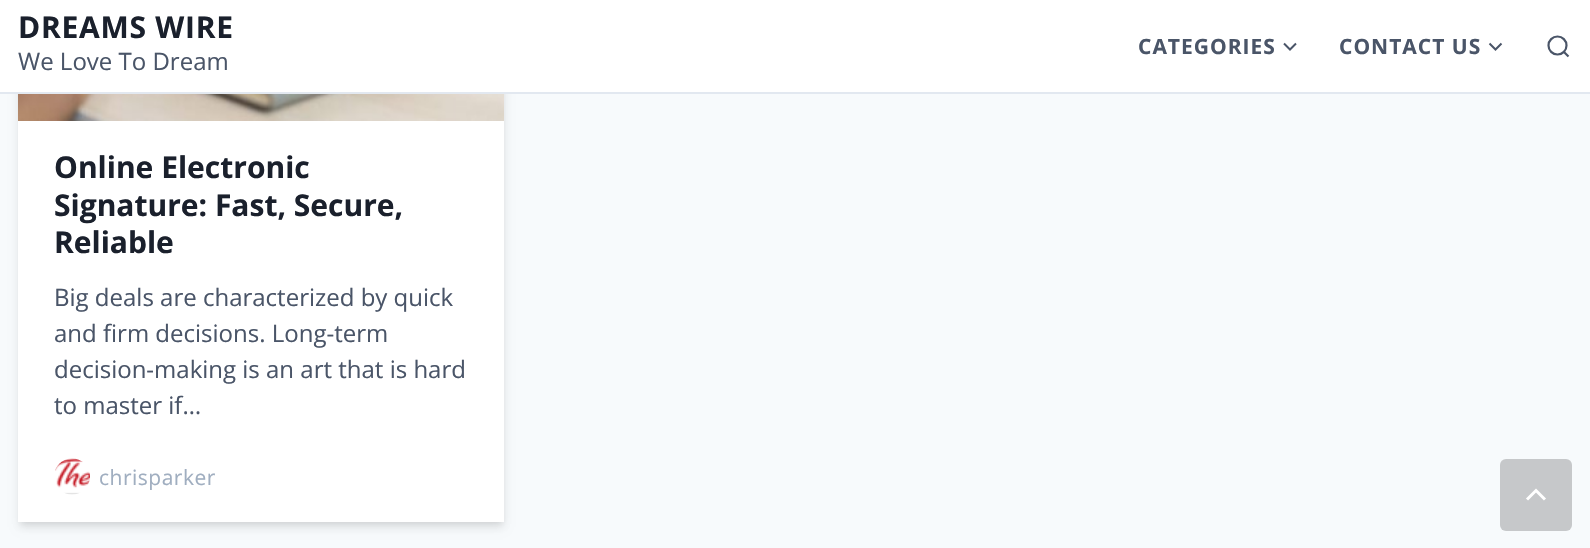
#include "include/core/SkBlurTypes.h"
#include "include/core/SkCanvas.h"
#include "include/core/SkData.h"
#include "include/core/SkFont.h"
#include "include/core/SkFontMgr.h"
#include "include/core/SkImage.h"
#include "include/core/SkMaskFilter.h"
#include "include/core/SkPaint.h"
#include "include/core/SkPathBuilder.h"
#include "include/core/SkTextBlob.h"
#include "include/effects/SkDashPathEffect.h"
#include "include/effects/SkGradientShader.h"
#include "include/utils/SkParsePath.h"

extern sk_sp<SkFontMgr> fontMgr;

void draw(SkCanvas* canvas) {
  SkPaint p;
  p.setAntiAlias(true);
  auto spacedText = [&](const char* s, float x, float y, const SkFont& font, const SkPaint& ink, float letter, float word) {
    std::vector<SkGlyphID> glyphs(font.countText(s, strlen(s), SkTextEncoding::kUTF8));
    std::vector<float> xs(glyphs.size());
    font.textToGlyphs(s, strlen(s), SkTextEncoding::kUTF8, glyphs);
    font.getXPos(glyphs, xs, x);
    float extra = 0;
    for (size_t i = 0; i < glyphs.size(); i++) {
      xs[i] += extra;
      extra += letter + word * (glyphs[i] == font.unicharToGlyph(' '));
    }
    canvas->drawTextBlob(SkTextBlob::MakeFromPosHGlyphs(glyphs, xs, y, font), 0, 0, ink);
  };
  canvas->clear(SkColorSetRGB(247, 250, 252));
  p.setColor(SkColorSetARGB(15, 0, 0, 0));
  p.setMaskFilter(SkMaskFilter::MakeBlur(kNormal_SkBlurStyle, 3));
  canvas->drawRect(SkRect::MakeLTRB(20, -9, 503, 524), p);
  p.setMaskFilter(nullptr);
  p.setColor(SkColorSetARGB(26, 0, 0, 0));
  p.setMaskFilter(SkMaskFilter::MakeBlur(kNormal_SkBlurStyle, 4.5f));
  canvas->drawRect(SkRect::MakeLTRB(20, -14, 503, 527), p);
  p.setMaskFilter(nullptr);
  p.setColor(SK_ColorWHITE);
  canvas->drawRect(SkRect::MakeLTRB(0, 0, 1590, 92), p);
  p.setColor(SkColorSetRGB(226, 232, 240));
  canvas->drawRect(SkRect::MakeLTRB(0, 92, 1590, 94), p);
  p.setStyle(SkPaint::kStroke_Style);
  p.setStrokeWidth(2);
  p.setColor(SkColorSetRGB(74, 85, 104));
  canvas->drawPath(SkPathBuilder().moveTo(1284, 43.5f).lineTo(1290, 49.5f).lineTo(1296, 43.5f).detach(), p);
  canvas->drawPath(SkPathBuilder().moveTo(1489.5f, 43.5f).lineTo(1495.5f, 49.5f).lineTo(1501.5f, 43.5f).detach(), p);
  p.setStrokeWidth(2.2f);
  canvas->drawCircle(1557.5f, 45.5f, 9, p);
  canvas->drawPath(SkPathBuilder().moveTo(1568.5f, 56.5f).lineTo(1563.5f, 51.5f).detach(), p);
  p.setStyle(SkPaint::kFill_Style);
  p.setColor(SK_ColorWHITE);
  canvas->drawRect(SkRect::MakeLTRB(18, 121, 504, 522), p);
  canvas->drawImageRect(SkImages::DeferredFromEncodedData(SkData::MakeFromFileName("images/1.png")), SkRect::MakeLTRB(18, 94, 504, 121), SkSamplingOptions());
  canvas->drawImageRect(SkImages::DeferredFromEncodedData(SkData::MakeFromFileName("images/2.png")), SkRect::MakeLTRB(55, 458, 90, 495), SkSamplingOptions());
  p.setColor(SkColorSetRGB(198, 200, 202));
  canvas->drawRoundRect(SkRect::MakeLTRB(1500, 459, 1572, 531), 6, 6, p);
  p.setStyle(SkPaint::kStroke_Style);
  p.setStrokeWidth(3);
  p.setColor(SK_ColorWHITE);
  canvas->drawPath(SkPathBuilder().moveTo(1545, 499.5f).lineTo(1536, 490.5f).lineTo(1527, 499.5f).detach(), p);
  SkFont font1(fontMgr->matchFamilyStyle("Open Sans", SkFontStyle::Bold()), 30);
  font1.setSubpixel(true);
  p.setStyle(SkPaint::kFill_Style);
  p.setColor(SkColorSetRGB(26, 32, 44));
  spacedText("DREAMS WIRE", 18, 38, font1, p, 0.75f, 0);
  SkFont font2(fontMgr->matchFamilyStyle("Open Sans", SkFontStyle::Normal()), 24);
  font2.setSubpixel(true);
  p.setColor(SkColorSetRGB(74, 85, 104));
  canvas->drawString("We Love To Dream", 18, 70, font2, p);
  SkFont font3(fontMgr->matchFamilyStyle("Open Sans", SkFontStyle::Bold()), 21);
  font3.setSubpixel(true);
  spacedText("CATEGORIES", 1138, 54, font3, p, 1, 0);
  spacedText("CONTACT US", 1339, 54, font3, p, 1, 0);
  p.setColor(SkColorSetRGB(26, 32, 44));
  canvas->drawString("Online Electronic", 54, 178, font1, p);
  canvas->drawString("Signature: Fast, Secure,", 54, 216, font1, p);
  canvas->drawString("Reliable", 54, 253, font1, p);
  p.setColor(SkColorSetRGB(74, 85, 104));
  canvas->drawString("Big deals are characterized by quick", 54, 306, font2, p);
  canvas->drawString("and firm decisions. Long-term", 54, 342, font2, p);
  canvas->drawString("decision-making is an art that is hard", 54, 378, font2, p);
  canvas->drawString("to master if…", 54, 414, font2, p);
  SkFont font4(fontMgr->matchFamilyStyle("Open Sans", SkFontStyle::Normal()), 21);
  font4.setSubpixel(true);
  p.setColor(SkColorSetRGB(160, 174, 192));
  spacedText("chrisparker", 99, 485, font4, p, 0.5f, 0);
}
